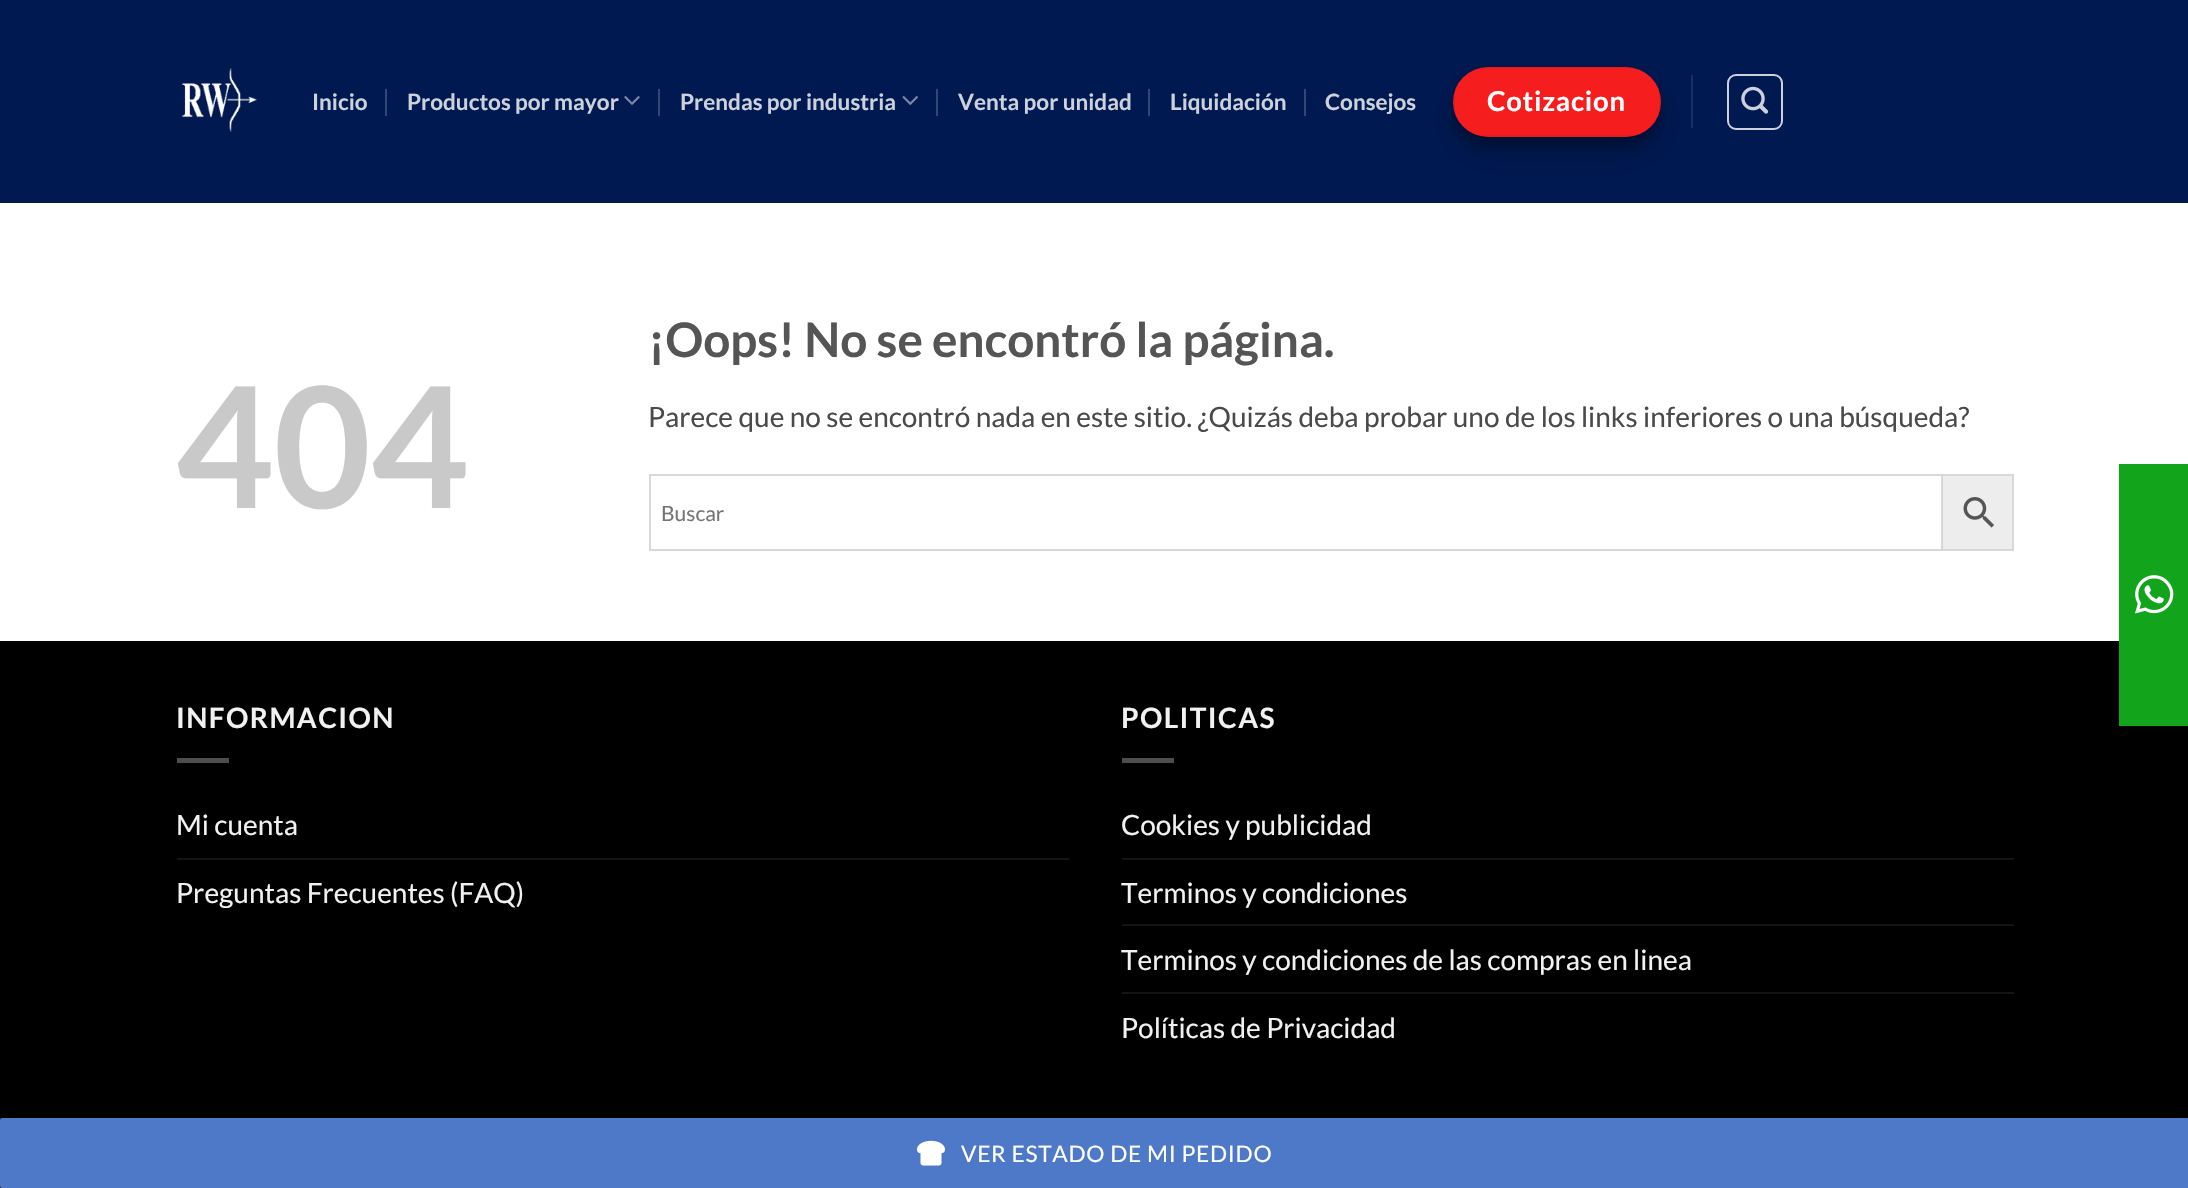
#include "include/core/SkBlurTypes.h"
#include "include/core/SkCanvas.h"
#include "include/core/SkData.h"
#include "include/core/SkFont.h"
#include "include/core/SkFontMgr.h"
#include "include/core/SkImage.h"
#include "include/core/SkMaskFilter.h"
#include "include/core/SkPaint.h"
#include "include/core/SkPathBuilder.h"
#include "include/core/SkTextBlob.h"
#include "include/effects/SkDashPathEffect.h"
#include "include/effects/SkGradientShader.h"
#include "include/utils/SkParsePath.h"

extern sk_sp<SkFontMgr> fontMgr;

void draw(SkCanvas* canvas) {
  SkPaint p;
  p.setAntiAlias(true);
  auto spacedText = [&](const char* s, float x, float y, const SkFont& font, const SkPaint& ink, float letter, float word) {
    std::vector<SkGlyphID> glyphs(font.countText(s, strlen(s), SkTextEncoding::kUTF8));
    std::vector<float> xs(glyphs.size());
    font.textToGlyphs(s, strlen(s), SkTextEncoding::kUTF8, glyphs);
    font.getXPos(glyphs, xs, x);
    float extra = 0;
    for (size_t i = 0; i < glyphs.size(); i++) {
      xs[i] += extra;
      extra += letter + word * (glyphs[i] == font.unicharToGlyph(' '));
    }
    canvas->drawTextBlob(SkTextBlob::MakeFromPosHGlyphs(glyphs, xs, y, font), 0, 0, ink);
  };
  canvas->clear(SK_ColorWHITE);
  p.setColor(SkColorSetRGB(0, 25, 81));
  canvas->drawRect(SkRect::MakeLTRB(0, 0, 2188, 203), p);
  canvas->drawImageRect(SkImages::DeferredFromEncodedData(SkData::MakeFromFileName("images/1.png")), SkRect::MakeLTRB(181, 68, 257, 132), SkSamplingOptions());
  p.setColor(SkColorSetRGB(51, 71, 116));
  canvas->drawRect(SkRect::MakeLTRB(385, 89, 387, 116), p);
  canvas->drawImageRect(SkImages::DeferredFromEncodedData(SkData::MakeFromFileName("images/2.png")), SkRect::MakeLTRB(624, 96, 640, 105), SkSamplingOptions());
  canvas->drawRect(SkRect::MakeLTRB(658, 89, 660, 116), p);
  canvas->drawImageRect(SkImages::DeferredFromEncodedData(SkData::MakeFromFileName("images/3.png")), SkRect::MakeLTRB(902, 96, 918, 105), SkSamplingOptions());
  canvas->drawRect(SkRect::MakeLTRB(936, 89, 938, 116), p);
  canvas->drawRect(SkRect::MakeLTRB(1148, 89, 1150, 116), p);
  canvas->drawRect(SkRect::MakeLTRB(1304, 89, 1306, 116), p);
  p.setColor(SkColorSetARGB(56, 0, 0, 0));
  p.setMaskFilter(SkMaskFilter::MakeBlur(kNormal_SkBlurStyle, 5));
  canvas->drawRoundRect(SkRect::MakeLTRB(1453, 77, 1661, 147), 35, 35, p);
  p.setMaskFilter(nullptr);
  p.setColor(SkColorSetARGB(48, 0, 0, 0));
  p.setMaskFilter(SkMaskFilter::MakeBlur(kNormal_SkBlurStyle, 17.5f));
  canvas->drawRoundRect(SkRect::MakeLTRB(1453, 84, 1661, 154), 35, 35, p);
  p.setMaskFilter(nullptr);
  p.setColor(SkColorSetRGB(245, 29, 29));
  canvas->drawRoundRect(SkRect::MakeLTRB(1453, 67, 1661, 137), 35, 35, p);
  p.setStyle(SkPaint::kStroke_Style);
  p.setStrokeWidth(2);
  p.setColor(SkColorSetARGB(13, 0, 0, 0));
  canvas->drawRect(SkRect::MakeLTRB(1454, 68, 1660, 136), p);
  p.setStyle(SkPaint::kFill_Style);
  p.setColor(SkColorSetRGB(26, 48, 98));
  canvas->drawRect(SkRect::MakeLTRB(1691, 75, 1693, 128), p);
  p.setStyle(SkPaint::kStroke_Style);
  p.setColor(SkColorSetRGB(204, 209, 220));
  canvas->drawRoundRect(SkRect::MakeLTRB(1728, 75, 1782, 129), 8, 8, p);
  canvas->drawImageRect(SkImages::DeferredFromEncodedData(SkData::MakeFromFileName("images/4.png")), SkRect::MakeLTRB(1741, 86, 1769, 114), SkSamplingOptions());
  p.setStyle(SkPaint::kFill_Style);
  p.setColor(SkColorSetRGB(237, 237, 237));
  canvas->drawRect(SkRect::MakeLTRB(1942, 475, 2013, 550), p);
  p.setStyle(SkPaint::kStroke_Style);
  p.setColor(SkColorSetRGB(216, 216, 216));
  canvas->drawRect(SkRect::MakeLTRB(1942, 475, 2013, 550), p);
  canvas->drawRect(SkRect::MakeLTRB(650, 475, 1942, 550), p);
  canvas->drawImageRect(SkImages::DeferredFromEncodedData(SkData::MakeFromFileName("images/5.png")), SkRect::MakeLTRB(1963, 497, 1994, 528), SkSamplingOptions());
  p.setStyle(SkPaint::kFill_Style);
  p.setColor(SK_ColorBLACK);
  canvas->drawRect(SkRect::MakeLTRB(0, 641, 2188, 1188), p);
  p.setColor(SkColorSetRGB(77, 77, 77));
  canvas->drawRect(SkRect::MakeLTRB(177, 758, 229, 763), p);
  p.setColor(SkColorSetRGB(20, 20, 20));
  canvas->drawRect(SkRect::MakeLTRB(177, 858, 1069, 860), p);
  p.setColor(SkColorSetRGB(77, 77, 77));
  canvas->drawRect(SkRect::MakeLTRB(1122, 758, 1174, 763), p);
  p.setColor(SkColorSetRGB(20, 20, 20));
  canvas->drawRect(SkRect::MakeLTRB(1122, 858, 2014, 860), p);
  canvas->drawRect(SkRect::MakeLTRB(1122, 924, 2014, 926), p);
  canvas->drawRect(SkRect::MakeLTRB(1122, 992, 2014, 994), p);
  p.setColor(SkColorSetRGB(18, 165, 28));
  canvas->drawRect(SkRect::MakeLTRB(2119, 464, 2188, 726), p);
  canvas->drawImageRect(SkImages::DeferredFromEncodedData(SkData::MakeFromFileName("images/6.png")), SkRect::MakeLTRB(2135, 575, 2174, 614), SkSamplingOptions());
  p.setColor(SkColorSetRGB(78, 121, 201));
  canvas->drawRoundRect(SkRect::MakeLTRB(0, 1118, 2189, 1188), 2, 2, p);
  canvas->drawImageRect(SkImages::DeferredFromEncodedData(SkData::MakeFromFileName("images/7.png")), SkRect::MakeLTRB(917, 1140, 945, 1166), SkSamplingOptions());
  SkFont font1(fontMgr->matchFamilyStyle("Lato", SkFontStyle::Bold()), 22.5f);
  font1.setSubpixel(true);
  p.setColor(SkColorSetRGB(204, 209, 220));
  canvas->drawString("Inicio", 312, 110, font1, p);
  canvas->drawString("Productos por mayor", 407, 110, font1, p);
  canvas->drawString("Prendas por industria", 680, 110, font1, p);
  canvas->drawString("Venta por unidad", 958, 110, font1, p);
  canvas->drawString("Liquidación", 1170, 110, font1, p);
  canvas->drawString("Consejos", 1325, 110, font1, p);
  SkFont font2(fontMgr->matchFamilyStyle("Lato", SkFontStyle::Bold()), 27.5f);
  font2.setSubpixel(true);
  p.setColor(SK_ColorWHITE);
  spacedText("Cotizacion", 1487, 111, font2, p, 0.75f, 0);
  SkFont font3(fontMgr->matchFamilyStyle("Lato", SkFontStyle::Bold()), 168);
  font3.setSubpixel(true);
  p.setColor(SkColorSetRGB(201, 201, 201));
  canvas->drawString("404", 176, 508, font3, p);
  SkFont font4(fontMgr->matchFamilyStyle("Lato", SkFontStyle::Bold()), 47.6f);
  font4.setSubpixel(true);
  p.setColor(SkColorSetRGB(85, 85, 85));
  canvas->drawString("¡Oops! No se encontró la página.", 648, 357, font4, p);
  SkFont font5(fontMgr->matchFamilyStyle("Lato", SkFontStyle::Normal()), 28);
  font5.setSubpixel(true);
  p.setColor(SkColorSetRGB(74, 74, 74));
  canvas->drawString("Parece que no se encontró nada en este sitio. ¿Quizás deba probar uno de los links inferiores o una búsqueda?", 648, 427, font5, p);
  SkFont font6(fontMgr->matchFamilyStyle("Lato", SkFontStyle::Normal()), 21);
  font6.setSubpixel(true);
  p.setColor(SkColorSetRGB(117, 117, 117));
  canvas->drawString("Buscar", 661, 521, font6, p);
  SkFont font7(fontMgr->matchFamilyStyle("Lato", SkFontStyle::Bold()), 28);
  font7.setSubpixel(true);
  p.setColor(SkColorSetRGB(241, 241, 241));
  spacedText("INFORMACION", 176, 728, font7, p, 1.4f, 0);
  canvas->drawString("Mi cuenta", 176, 835, font5, p);
  canvas->drawString("Preguntas Frecuentes (FAQ)", 176, 903, font5, p);
  spacedText("POLITICAS", 1121, 728, font7, p, 1.4f, 0);
  canvas->drawString("Cookies y publicidad", 1121, 835, font5, p);
  canvas->drawString("Terminos y condiciones", 1121, 903, font5, p);
  canvas->drawString("Terminos y condiciones de las compras en linea", 1121, 970, font5, p);
  canvas->drawString("Políticas de Privacidad", 1121, 1038, font5, p);
  SkFont font8(fontMgr->matchFamilyStyle("Lato", SkFontStyle::Normal()), 22.75f);
  font8.setSubpixel(true);
  p.setColor(SK_ColorWHITE);
  spacedText("VER ESTADO DE MI PEDIDO", 961, 1162, font8, p, 0.7f, 0);
}
